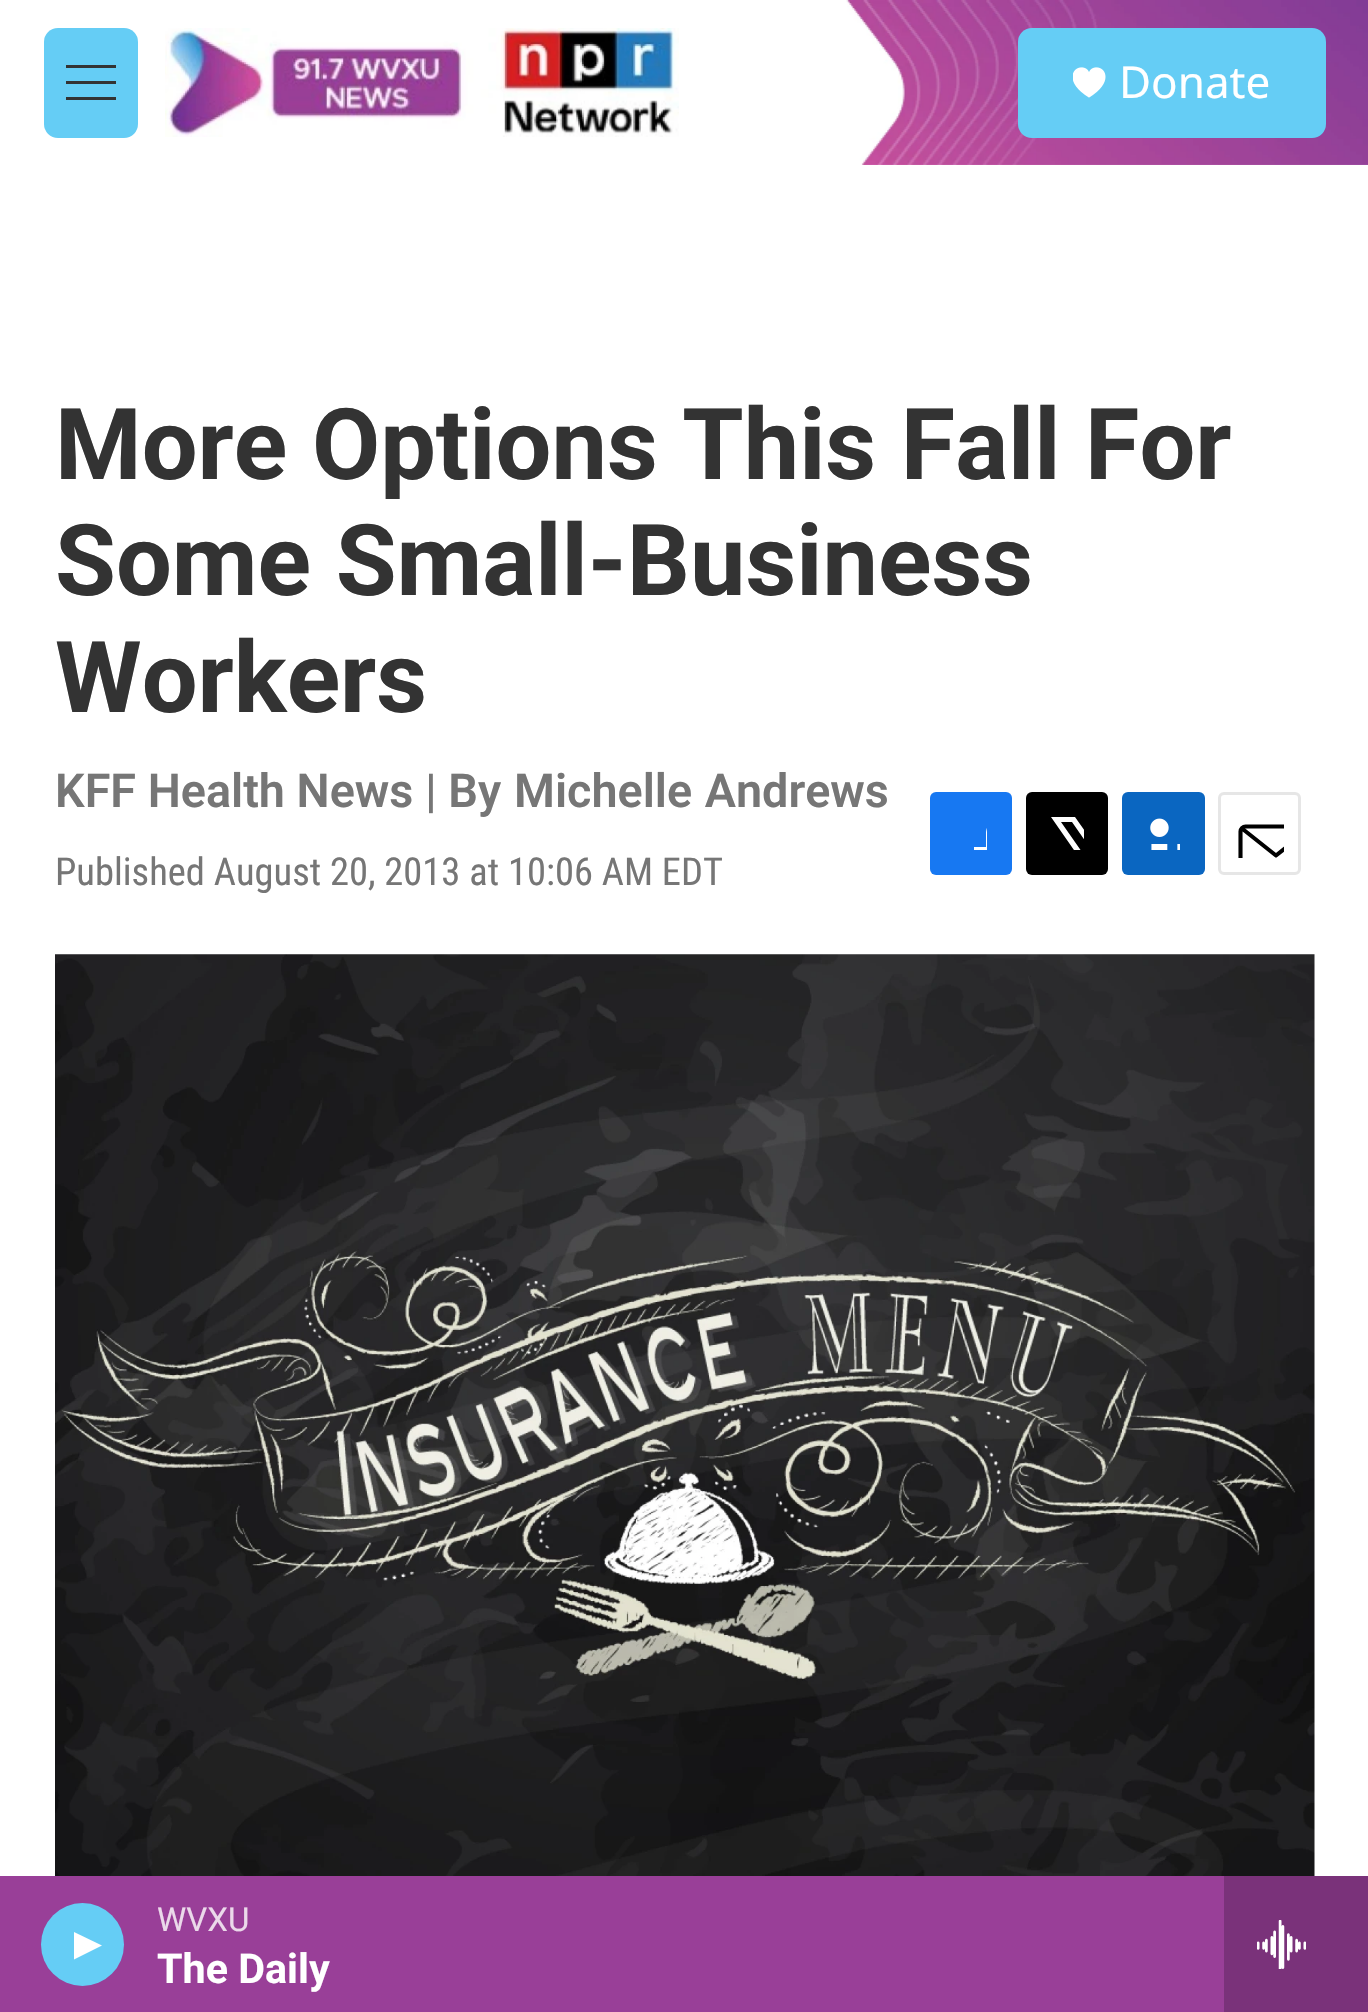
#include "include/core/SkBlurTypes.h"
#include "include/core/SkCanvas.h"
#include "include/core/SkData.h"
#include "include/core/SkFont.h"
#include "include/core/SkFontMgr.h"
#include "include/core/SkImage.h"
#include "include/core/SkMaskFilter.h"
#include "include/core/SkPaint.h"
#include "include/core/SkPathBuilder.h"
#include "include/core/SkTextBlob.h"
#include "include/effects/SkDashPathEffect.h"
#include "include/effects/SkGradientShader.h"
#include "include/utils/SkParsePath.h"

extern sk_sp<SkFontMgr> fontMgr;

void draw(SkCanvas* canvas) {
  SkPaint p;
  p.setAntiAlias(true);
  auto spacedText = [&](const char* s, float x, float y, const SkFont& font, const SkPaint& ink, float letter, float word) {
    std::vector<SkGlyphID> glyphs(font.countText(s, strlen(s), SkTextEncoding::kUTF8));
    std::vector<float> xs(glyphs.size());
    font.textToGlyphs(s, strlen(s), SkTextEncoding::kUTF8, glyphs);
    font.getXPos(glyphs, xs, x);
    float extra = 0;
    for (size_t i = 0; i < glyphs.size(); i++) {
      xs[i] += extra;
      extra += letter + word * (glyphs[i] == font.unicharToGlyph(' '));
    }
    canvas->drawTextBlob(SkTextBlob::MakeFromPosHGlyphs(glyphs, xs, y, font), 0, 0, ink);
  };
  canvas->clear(SK_ColorWHITE);
  canvas->drawImageRect(SkImages::DeferredFromEncodedData(SkData::MakeFromFileName("images/1.png")), SkRect::MakeLTRB(846, 0, 1368, 165), SkSamplingOptions());
  p.setColor(SkColorSetRGB(101, 205, 245));
  canvas->drawRoundRect(SkRect::MakeLTRB(44, 28, 138, 138), 14, 14, p);
  p.setColor(SkColorSetRGB(51, 51, 51));
  canvas->drawPath(SkPathBuilder(SkPathFillType::kEvenOdd).moveTo(66, 84).lineTo(66, 81).lineTo(116, 81).lineTo(116, 84).close().moveTo(66, 68).lineTo(66, 65).lineTo(116, 65).lineTo(116, 68).close().moveTo(66, 100).lineTo(66, 97).lineTo(116, 97).lineTo(116, 100).close().detach(), p);
  canvas->drawImageRect(SkImages::DeferredFromEncodedData(SkData::MakeFromFileName("images/2.png")), SkRect::MakeLTRB(165, 28, 679, 137), SkSamplingOptions());
  p.setColor(SkColorSetRGB(101, 205, 245));
  canvas->drawRoundRect(SkRect::MakeLTRB(1018, 28, 1326, 138), 14, 14, p);
  canvas->drawImageRect(SkImages::DeferredFromEncodedData(SkData::MakeFromFileName("images/3.png")), SkRect::MakeLTRB(1073, 67, 1106, 98), SkSamplingOptions());
  p.setColor(SkColorSetRGB(153, 63, 152));
  canvas->drawRect(SkRect::MakeLTRB(0, 1876, 1224, 2012), p);
  p.setColor(SkColorSetRGB(101, 205, 245));
  canvas->drawCircle(82.5f, 1944.5f, 41.5f, p);
  p.setColor(SK_ColorWHITE);
  canvas->drawPath(SkPathBuilder().moveTo(74, 1932).lineTo(102, 1945.5f).lineTo(74, 1959.5f).close().detach(), p);
  p.setColor(SkColorSetRGB(122, 50, 122));
  canvas->drawRect(SkRect::MakeLTRB(1224, 1876, 1368, 2012), p);
  canvas->drawImageRect(SkImages::DeferredFromEncodedData(SkData::MakeFromFileName("images/4.png")), SkRect::MakeLTRB(1257, 1920, 1306, 1969), SkSamplingOptions());
  p.setColor(SkColorSetRGB(23, 120, 242));
  canvas->drawRoundRect(SkRect::MakeLTRB(930, 792, 1012, 875), 6, 6, p);
  canvas->save();
  canvas->clipRect(SkRect::MakeLTRB(954, 817, 987, 850));
  p.setColor(SK_ColorWHITE);
  canvas->drawPath(SkPathBuilder().moveTo(1000, 875).lineTo(986, 875).lineTo(986, 861).lineTo(974, 861).lineTo(974, 847).lineTo(986, 847).lineTo(986, 832).cubicTo(988, 818, 1000, 817, 1012, 818).lineTo(1012, 831).cubicTo(997, 831, 1000, 835, 1000, 847).lineTo(1012, 847).lineTo(1012, 854).lineTo(1011, 861).lineTo(1000, 861).close().detach(), p);
  canvas->restore();
  p.setColor(SK_ColorBLACK);
  canvas->drawRoundRect(SkRect::MakeLTRB(1026, 792, 1108, 875), 6, 6, p);
  canvas->save();
  canvas->clipRect(SkRect::MakeLTRB(1051, 817, 1084, 850));
  p.setColor(SK_ColorWHITE);
  canvas->drawPath(SkPathBuilder().moveTo(1099, 852).lineTo(1108, 865).cubicTo(1108, 867, 1108, 870, 1107, 872).lineTo(1072, 822).lineTo(1061, 822).lineTo(1098, 875).lineTo(1092, 875).lineTo(1086, 867).lineTo(1079, 875).lineTo(1072, 875).lineTo(1083, 863).lineTo(1051, 817).lineTo(1075, 817).lineTo(1096, 847).lineTo(1108, 833).lineTo(1108, 842).close().detach(), p);
  canvas->restore();
  p.setColor(SkColorSetRGB(10, 102, 193));
  canvas->drawRoundRect(SkRect::MakeLTRB(1122, 792, 1205, 875), 6, 6, p);
  canvas->drawImageRect(SkImages::DeferredFromEncodedData(SkData::MakeFromFileName("images/5.png")), SkRect::MakeLTRB(1150, 818, 1180, 850), SkSamplingOptions());
  p.setStyle(SkPaint::kStroke_Style);
  p.setStrokeWidth(3);
  p.setColor(SkColorSetRGB(230, 230, 230));
  canvas->drawRoundRect(SkRect::MakeLTRB(1219.5f, 793.5f, 1299.5f, 873.5f), 4.5f, 4.5f, p);
  canvas->save();
  canvas->clipRect(SkRect::MakeLTRB(1235, 809, 1284, 858));
  p.setStrokeWidth(4.1f);
  p.setStrokeCap(SkPaint::kRound_Cap);
  p.setStrokeJoin(SkPaint::kRound_Join);
  p.setColor(SK_ColorBLACK);
  canvas->drawPath(SkPathBuilder().moveTo(1311.5f, 869).cubicTo(1311.5f, 871.5f, 1309, 874, 1306.5f, 874).lineTo(1245.5f, 874).cubicTo(1243, 874, 1240.5f, 871.5f, 1240.5f, 869).lineTo(1240.5f, 831.5f).cubicTo(1240.5f, 829, 1243, 826.5f, 1245.5f, 826.5f).lineTo(1306.5f, 826.5f).cubicTo(1309, 826.5f, 1311.5f, 829, 1311.5f, 831.5f).close().moveTo(1309.5f, 828.5f).lineTo(1276, 855.5f).lineTo(1242, 828.5f).detach(), p);
  canvas->restore();
  canvas->drawImageRect(SkImages::DeferredFromEncodedData(SkData::MakeFromFileName("images/6.png")), SkRect::MakeLTRB(55, 954, 1315, 1876), SkSamplingOptions());
  SkFont font1(fontMgr->matchFamilyStyle("Noto Sans", SkFontStyle::Normal()), 44);
  font1.setSubpixel(true);
  p.setStyle(SkPaint::kFill_Style);
  p.setColor(SK_ColorWHITE);
  canvas->drawString("Donate", 1119, 98, font1, p);
  SkFont font2(fontMgr->matchFamilyStyle("Roboto", SkFontStyle::Normal()), 33);
  font2.setSubpixel(true);
  p.setColor(SkColorSetRGB(235, 217, 234));
  canvas->drawString("WVXU", 157, 1931, font2, p);
  SkFont font3(fontMgr->matchFamilyStyle("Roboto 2", SkFontStyle::Bold()), 41.25f);
  font3.setSubpixel(true);
  p.setColor(SK_ColorWHITE);
  canvas->drawString("The Daily", 157, 1983, font3, p);
  SkFont font4(fontMgr->matchFamilyStyle("Roboto", SkFontStyle::Bold()), 99);
  font4.setSubpixel(true);
  p.setColor(SkColorSetRGB(51, 51, 51));
  canvas->drawString("More Options This Fall For", 55, 479, font4, p);
  canvas->drawString("Some Small-Business", 55, 595, font4, p);
  canvas->drawString("Workers", 55, 712, font4, p);
  SkFont font5(fontMgr->matchFamilyStyle("Roboto", SkFontStyle(600, SkFontStyle::kNormal_Width, SkFontStyle::kUpright_Slant)), 46.75f);
  font5.setSubpixel(true);
  p.setColor(SkColorSetRGB(118, 118, 118));
  canvas->drawString("KFF Health News | By", 55, 807, font5, p);
  spacedText("Michelle Andrews", 514, 807, font5, p, 0, 1);
  SkFont font6(fontMgr->matchFamilyStyle("Roboto Condensed", SkFontStyle::Normal()), 38.5f);
  font6.setSubpixel(true);
  canvas->drawString("Published August 20, 2013 at 10:06 AM EDT", 55, 885, font6, p);
}
